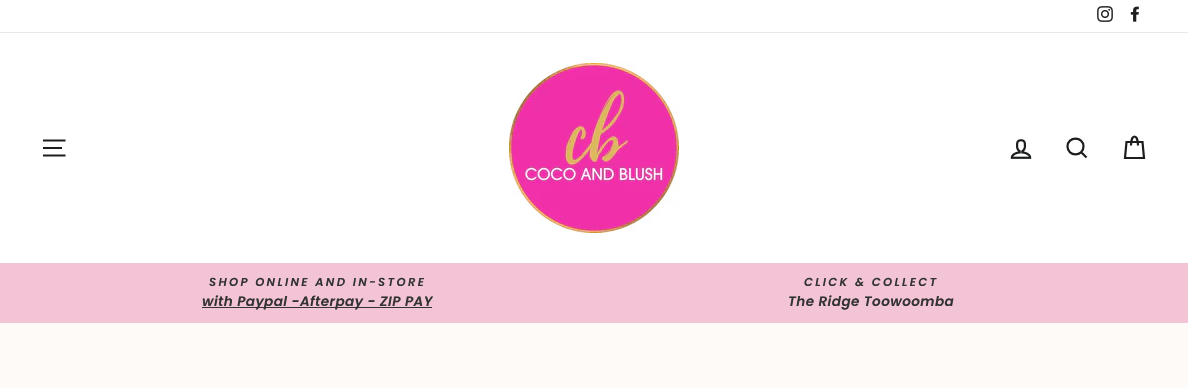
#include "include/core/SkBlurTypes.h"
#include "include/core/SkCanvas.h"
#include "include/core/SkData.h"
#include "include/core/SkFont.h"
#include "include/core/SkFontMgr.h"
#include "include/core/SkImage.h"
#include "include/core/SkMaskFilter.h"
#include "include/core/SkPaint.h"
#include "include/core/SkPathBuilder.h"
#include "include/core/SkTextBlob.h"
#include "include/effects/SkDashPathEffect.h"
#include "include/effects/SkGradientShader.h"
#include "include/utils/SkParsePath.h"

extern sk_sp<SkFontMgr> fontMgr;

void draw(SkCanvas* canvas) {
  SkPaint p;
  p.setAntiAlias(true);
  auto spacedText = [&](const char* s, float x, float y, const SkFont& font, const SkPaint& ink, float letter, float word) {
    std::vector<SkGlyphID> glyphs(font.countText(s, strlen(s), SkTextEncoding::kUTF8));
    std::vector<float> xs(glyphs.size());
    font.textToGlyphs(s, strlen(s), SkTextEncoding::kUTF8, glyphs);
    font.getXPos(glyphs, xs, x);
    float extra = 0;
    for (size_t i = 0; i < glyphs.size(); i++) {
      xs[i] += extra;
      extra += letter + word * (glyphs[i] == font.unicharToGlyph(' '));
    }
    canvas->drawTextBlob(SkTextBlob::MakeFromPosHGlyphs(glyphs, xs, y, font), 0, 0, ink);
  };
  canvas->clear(SkColorSetRGB(253, 250, 247));
  p.setColor(SK_ColorWHITE);
  canvas->drawRect(SkRect::MakeLTRB(0, 0, 1188, 32), p);
  canvas->drawImageRect(SkImages::DeferredFromEncodedData(SkData::MakeFromFileName("images/1.png")), SkRect::MakeLTRB(1097, 6, 1113, 22), SkSamplingOptions());
  canvas->drawImageRect(SkImages::DeferredFromEncodedData(SkData::MakeFromFileName("images/2.png")), SkRect::MakeLTRB(1130, 6, 1139, 22), SkSamplingOptions());
  canvas->drawRect(SkRect::MakeLTRB(0, 33, 1188, 263), p);
  p.setColor(SkColorSetRGB(232, 232, 232));
  canvas->drawRect(SkRect::MakeLTRB(0, 32, 1188, 33), p);
  p.setStyle(SkPaint::kStroke_Style);
  p.setStrokeWidth(2.2f);
  p.setColor(SkColorSetRGB(28, 29, 29));
  canvas->drawPath(SkPathBuilder().moveTo(43, 140.5f).lineTo(65.5f, 140.5f).moveTo(43, 148).lineTo(62, 148).moveTo(43, 155.5f).lineTo(65.5f, 155.5f).detach(), p);
  canvas->drawImageRect(SkImages::DeferredFromEncodedData(SkData::MakeFromFileName("images/3.png")), SkRect::MakeLTRB(509, 63, 679, 233), SkSamplingOptions());
  canvas->drawImageRect(SkImages::DeferredFromEncodedData(SkData::MakeFromFileName("images/4.png")), SkRect::MakeLTRB(1010, 139, 1032, 159), SkSamplingOptions());
  canvas->drawPath(SkPathBuilder().moveTo(1083.5f, 146.5f).cubicTo(1083.5f, 157, 1067.5f, 157, 1067.5f, 146.5f).cubicTo(1067.5f, 136, 1083.5f, 136, 1083.5f, 146.5f).close().moveTo(1086.5f, 157.5f).lineTo(1081.5f, 152.5f).detach(), p);
  canvas->drawPath(SkPathBuilder().moveTo(1131, 145.5f).cubicTo(1131, 133.5f, 1138, 133.5f, 1138, 145.5f).moveTo(1126.5f, 142).lineTo(1142.5f, 142).lineTo(1144, 158).lineTo(1125, 158).close().detach(), p);
  p.setStyle(SkPaint::kFill_Style);
  p.setColor(SkColorSetRGB(242, 196, 213));
  canvas->drawRect(SkRect::MakeLTRB(0, 263, 1188, 323), p);
  p.setColor(SkColorSetRGB(51, 51, 51));
  canvas->drawRect(SkRect::MakeLTRB(202, 307, 432, 308), p);
  SkFont font1(fontMgr->matchFamilyStyle("Poppins", SkFontStyle(600, SkFontStyle::kNormal_Width, SkFontStyle::kItalic_Slant)), 11.6f);
  font1.setSubpixel(true);
  spacedText("SHOP ONLINE AND IN-STORE", 209, 286, font1, p, 2.3f, 0);
  SkFont font2(fontMgr->matchFamilyStyle("Poppins", SkFontStyle(600, SkFontStyle::kNormal_Width, SkFontStyle::kItalic_Slant)), 13.6f);
  font2.setSubpixel(true);
  spacedText("with Paypal -Afterpay - ZIP PAY", 202, 306, font2, p, 0.4f, 0);
  spacedText("CLICK & COLLECT", 804, 286, font1, p, 2.3f, 0);
  spacedText("The Ridge Toowoomba", 788, 306, font2, p, 0.4f, 0);
}
